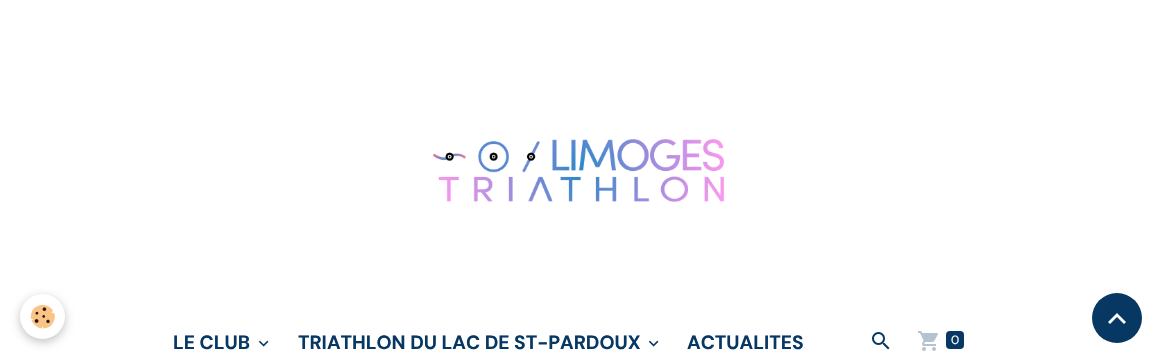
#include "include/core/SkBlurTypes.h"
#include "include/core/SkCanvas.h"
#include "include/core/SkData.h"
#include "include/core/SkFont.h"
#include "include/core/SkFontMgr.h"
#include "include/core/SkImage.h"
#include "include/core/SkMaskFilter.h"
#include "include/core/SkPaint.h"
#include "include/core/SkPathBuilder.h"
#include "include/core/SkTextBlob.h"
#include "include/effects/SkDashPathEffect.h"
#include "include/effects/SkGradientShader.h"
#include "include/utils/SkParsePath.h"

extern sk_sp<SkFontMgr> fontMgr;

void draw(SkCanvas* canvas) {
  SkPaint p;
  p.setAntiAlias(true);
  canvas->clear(SK_ColorWHITE);
  canvas->drawImageRect(SkImages::DeferredFromEncodedData(SkData::MakeFromFileName("images/1.png")), SkRect::MakeLTRB(433, 139, 725, 202), SkSamplingOptions());
  p.setColor(SkColorSetARGB(61, 0, 0, 0));
  p.setMaskFilter(SkMaskFilter::MakeBlur(kNormal_SkBlurStyle, 5));
  canvas->drawRoundRect(SkRect::MakeLTRB(20, 297, 65, 342), 22.5f, 22.5f, p);
  p.setMaskFilter(nullptr);
  p.setColor(SK_ColorWHITE);
  canvas->drawCircle(42.5f, 316.5f, 22.5f, p);
  canvas->drawImageRect(SkImages::DeferredFromEncodedData(SkData::MakeFromFileName("images/2.png")), SkRect::MakeLTRB(30, 304, 55, 329), SkSamplingOptions());
  canvas->drawImageRect(SkImages::DeferredFromEncodedData(SkData::MakeFromFileName("images/3.png")), SkRect::MakeLTRB(258, 340, 269, 347), SkSamplingOptions());
  canvas->drawImageRect(SkImages::DeferredFromEncodedData(SkData::MakeFromFileName("images/3.png")), SkRect::MakeLTRB(648, 340, 659, 347), SkSamplingOptions());
  canvas->drawImageRect(SkImages::DeferredFromEncodedData(SkData::MakeFromFileName("images/4.png")), SkRect::MakeLTRB(872, 332, 890, 350), SkSamplingOptions());
  canvas->drawImageRect(SkImages::DeferredFromEncodedData(SkData::MakeFromFileName("images/5.png")), SkRect::MakeLTRB(918, 331, 938, 351), SkSamplingOptions());
  p.setColor(SkColorSetRGB(7, 55, 99));
  canvas->drawRoundRect(SkRect::MakeLTRB(946, 331, 964, 349), 4, 4, p);
  canvas->drawCircle(1117, 318, 25, p);
  p.setColor(SK_ColorWHITE);
  canvas->drawPath(SkPathBuilder().moveTo(1117, 313).lineTo(1126, 322).lineTo(1124, 324).lineTo(1117, 317).lineTo(1110, 324).lineTo(1108, 322).close().detach(), p);
  SkFont font1(fontMgr->matchFamilyStyle("DM Sans", SkFontStyle::Bold()), 19.25f);
  font1.setSubpixel(true);
  p.setColor(SkColorSetRGB(7, 55, 99));
  canvas->drawString("LE CLUB", 173, 349, font1, p);
  canvas->drawString("TRIATHLON DU LAC DE ST-PARDOUX", 298, 349, font1, p);
  canvas->drawString("ACTUALITES", 687, 349, font1, p);
  SkFont font2(fontMgr->matchFamilyStyle("DM Sans", SkFontStyle::Normal()), 12);
  font2.setSubpixel(true);
  p.setColor(SK_ColorWHITE);
  canvas->drawString("0", 951, 344, font2, p);
}
